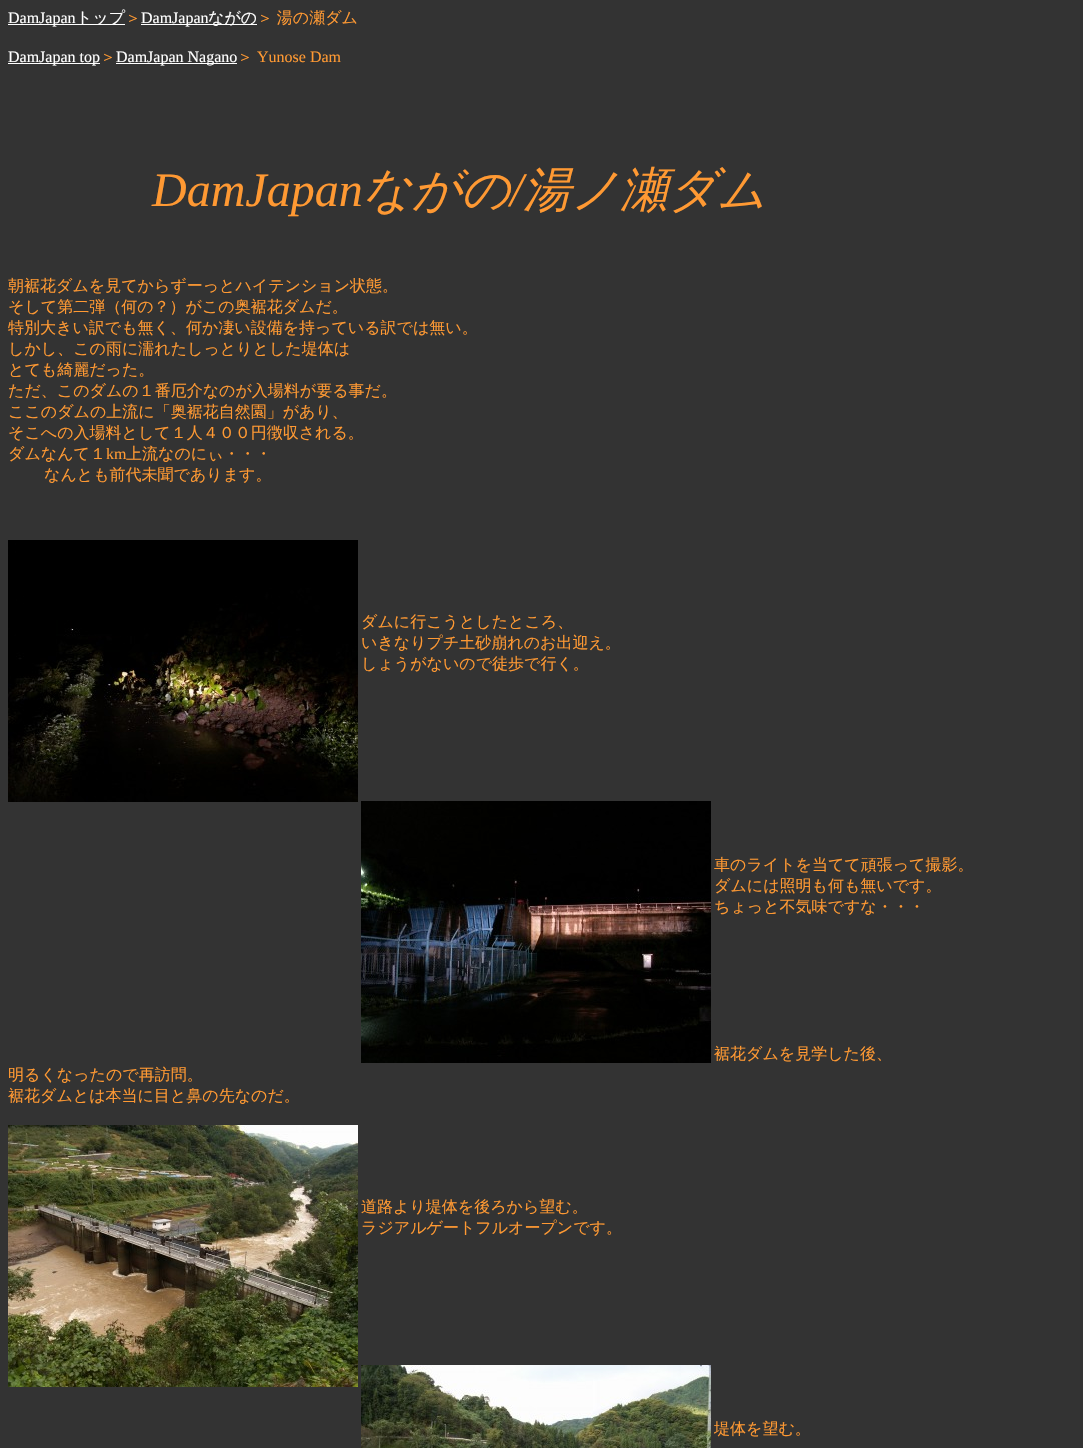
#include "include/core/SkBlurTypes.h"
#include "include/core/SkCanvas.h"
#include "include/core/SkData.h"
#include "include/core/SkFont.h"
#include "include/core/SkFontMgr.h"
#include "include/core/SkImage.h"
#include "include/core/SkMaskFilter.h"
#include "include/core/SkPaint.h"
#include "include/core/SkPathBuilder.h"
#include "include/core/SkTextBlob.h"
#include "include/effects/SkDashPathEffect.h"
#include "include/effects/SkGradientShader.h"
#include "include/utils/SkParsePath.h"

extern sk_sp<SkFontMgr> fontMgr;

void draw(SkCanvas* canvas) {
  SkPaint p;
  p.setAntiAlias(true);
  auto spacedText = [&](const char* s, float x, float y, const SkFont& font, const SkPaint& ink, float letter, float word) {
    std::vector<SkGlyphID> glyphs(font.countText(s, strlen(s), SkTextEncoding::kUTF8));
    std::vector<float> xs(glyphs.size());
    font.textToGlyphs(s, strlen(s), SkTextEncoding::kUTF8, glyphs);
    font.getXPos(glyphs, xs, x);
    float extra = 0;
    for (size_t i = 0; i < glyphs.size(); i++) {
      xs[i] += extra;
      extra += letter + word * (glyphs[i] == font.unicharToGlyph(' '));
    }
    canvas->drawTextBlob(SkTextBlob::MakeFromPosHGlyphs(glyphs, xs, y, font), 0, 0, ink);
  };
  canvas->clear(SkColorSetRGB(51, 51, 51));
  p.setColor(SK_ColorWHITE);
  canvas->drawRect(SkRect::MakeLTRB(8, 24, 125, 25), p);
  canvas->drawRect(SkRect::MakeLTRB(141, 24, 257, 25), p);
  canvas->drawRect(SkRect::MakeLTRB(8, 63, 100, 64), p);
  canvas->drawRect(SkRect::MakeLTRB(116, 63, 237, 64), p);
  canvas->drawImageRect(SkImages::DeferredFromEncodedData(SkData::MakeFromFileName("images/1.png")), SkRect::MakeLTRB(8, 540, 358, 802), SkSamplingOptions());
  canvas->drawImageRect(SkImages::DeferredFromEncodedData(SkData::MakeFromFileName("images/2.png")), SkRect::MakeLTRB(361, 801, 711, 1063), SkSamplingOptions());
  canvas->drawImageRect(SkImages::DeferredFromEncodedData(SkData::MakeFromFileName("images/3.png")), SkRect::MakeLTRB(8, 1125, 358, 1387), SkSamplingOptions());
  canvas->drawImageRect(SkImages::DeferredFromEncodedData(SkData::MakeFromFileName("images/4.png")), SkRect::MakeLTRB(361, 1365, 711, 1448), SkSamplingOptions());
  SkFont font1(fontMgr->matchFamilyStyle("Liberation Serif", SkFontStyle::Normal()), 16);
  font1.setSubpixel(true);
  canvas->drawString("DamJapan", 8, 23, font1, p);
  SkFont font2(fontMgr->matchFamilyStyle("WenQuanYi Zen Hei", SkFontStyle(500, SkFontStyle::kNormal_Width, SkFontStyle::kUpright_Slant)), 16);
  font2.setSubpixel(true);
  canvas->drawString("トップ", 76, 23, font2, p);
  p.setColor(SkColorSetRGB(255, 153, 51));
  canvas->drawString("＞", 125, 23, font2, p);
  p.setColor(SK_ColorWHITE);
  canvas->drawString("DamJapan", 141, 23, font1, p);
  canvas->drawString("ながの", 208, 23, font2, p);
  p.setColor(SkColorSetRGB(255, 153, 51));
  spacedText("＞ 湯の瀬ダム", 257, 23, font2, p, 0, -1);
  p.setColor(SK_ColorWHITE);
  canvas->drawString("DamJapan top", 8, 62, font1, p);
  p.setColor(SkColorSetRGB(255, 153, 51));
  canvas->drawString("＞", 100, 62, font2, p);
  p.setColor(SK_ColorWHITE);
  canvas->drawString("DamJapan Nagano", 116, 62, font1, p);
  p.setColor(SkColorSetRGB(255, 153, 51));
  canvas->drawString("＞", 237, 62, font2, p);
  canvas->drawString("Yunose Dam", 257, 62, font1, p);
  SkFont font3(fontMgr->matchFamilyStyle("Liberation Serif", SkFontStyle::Italic()), 48);
  font3.setSubpixel(true);
  canvas->drawString("DamJapan", 152, 206, font3, p);
  SkFont font4(fontMgr->matchFamilyStyle("WenQuanYi Zen Hei", SkFontStyle(500, SkFontStyle::kNormal_Width, SkFontStyle::kItalic_Slant)), 48);
  font4.setSubpixel(true);
  canvas->drawString("ながの", 363, 206, font4, p);
  canvas->drawString("/", 510, 206, font3, p);
  canvas->drawString("湯ノ瀬ダム", 523, 206, font4, p);
  canvas->drawString("朝裾花ダムを見てからずーっとハイテンション状態。", 8, 291, font2, p);
  canvas->drawString("そして第二弾（何の？）がこの奥裾花ダムだ。", 8, 312, font2, p);
  canvas->drawString("特別大きい訳でも無く、何か凄い設備を持っている訳では無い。", 8, 333, font2, p);
  canvas->drawString("しかし、この雨に濡れたしっとりとした堤体は", 8, 354, font2, p);
  canvas->drawString("とても綺麗だった。", 8, 375, font2, p);
  canvas->drawString("ただ、このダムの１番厄介なのが入場料が要る事だ。", 8, 396, font2, p);
  canvas->drawString("ここのダムの上流に「奥裾花自然園」があり、", 8, 417, font2, p);
  canvas->drawString("そこへの入場料として１人４００円徴収される。", 8, 438, font2, p);
  canvas->drawString("ダムなんて１", 8, 459, font2, p);
  canvas->drawString("km", 106, 459, font1, p);
  canvas->drawString("上流なのにぃ・・・", 126, 459, font2, p);
  canvas->drawString("なんとも前代未聞であります。", 44, 480, font2, p);
  canvas->drawString("ダムに行こうとしたところ、", 361, 627, font2, p);
  canvas->drawString("いきなりプチ土砂崩れのお出迎え。", 361, 648, font2, p);
  canvas->drawString("しょうがないので徒歩で行く。", 361, 669, font2, p);
  canvas->drawString("車のライトを当てて頑張って撮影。", 714, 870, font2, p);
  canvas->drawString("ダムには照明も何も無いです。", 714, 891, font2, p);
  canvas->drawString("ちょっと不気味ですな・・・", 714, 912, font2, p);
  canvas->drawString("裾花ダムを見学した後、", 714, 1059, font2, p);
  canvas->drawString("明るくなったので再訪問。", 8, 1080, font2, p);
  canvas->drawString("裾花ダムとは本当に目と鼻の先なのだ。", 8, 1101, font2, p);
  canvas->drawString("道路より堤体を後ろから望む。", 361, 1212, font2, p);
  canvas->drawString("ラジアルゲートフルオープンです。", 361, 1233, font2, p);
  canvas->drawString("堤体を望む。", 714, 1434, font2, p);
}
